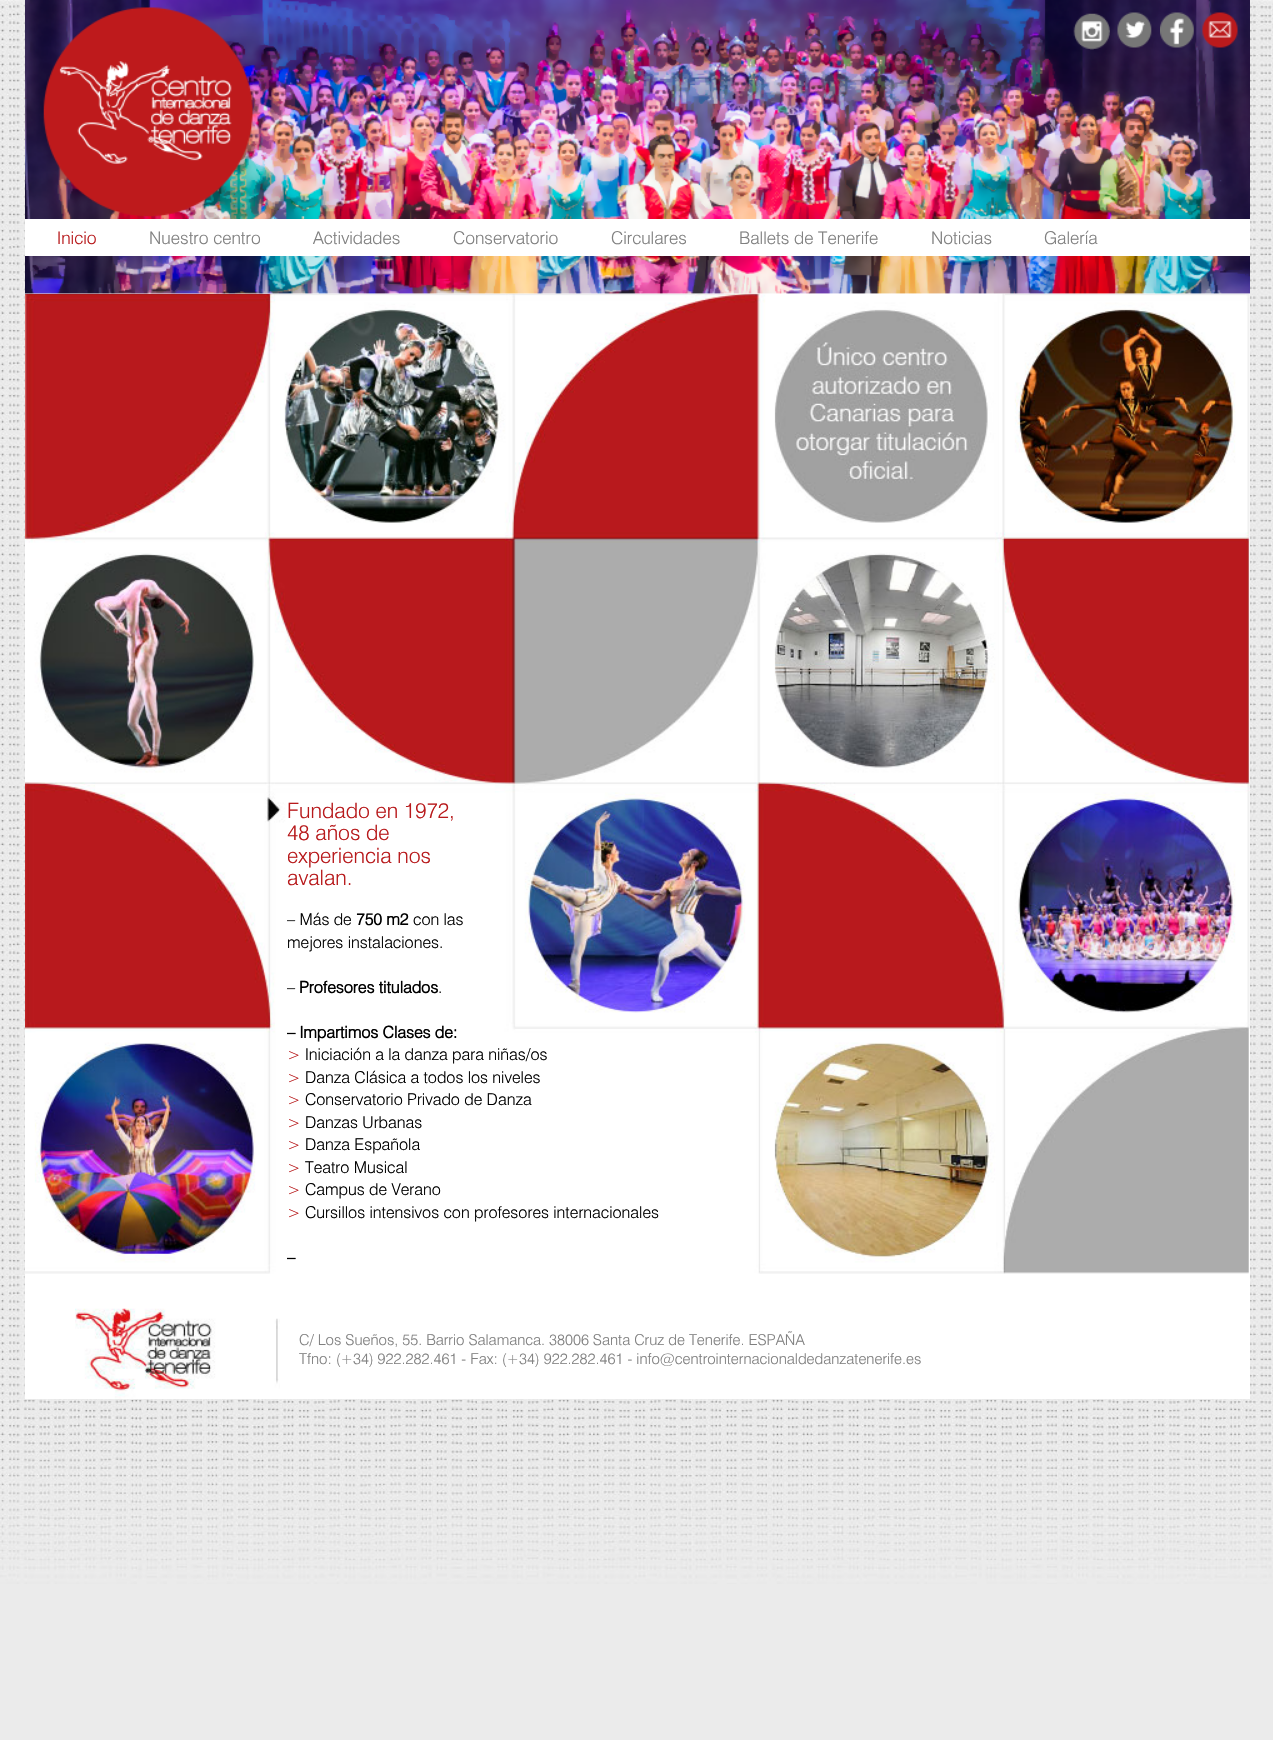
#include "include/core/SkBlurTypes.h"
#include "include/core/SkCanvas.h"
#include "include/core/SkData.h"
#include "include/core/SkFont.h"
#include "include/core/SkFontMgr.h"
#include "include/core/SkImage.h"
#include "include/core/SkMaskFilter.h"
#include "include/core/SkPaint.h"
#include "include/core/SkPathBuilder.h"
#include "include/core/SkTextBlob.h"
#include "include/effects/SkDashPathEffect.h"
#include "include/effects/SkGradientShader.h"
#include "include/utils/SkParsePath.h"

extern sk_sp<SkFontMgr> fontMgr;

void draw(SkCanvas* canvas) {
  SkPaint p;
  p.setAntiAlias(true);
  canvas->clear(SkColorSetRGB(235, 235, 235));
  canvas->drawImageRect(SkImages::DeferredFromEncodedData(SkData::MakeFromFileName("images/1.png")), SkRect::MakeLTRB(0, 0, 1273, 1584), SkSamplingOptions());
  p.setColor(SK_ColorWHITE);
  canvas->drawRect(SkRect::MakeLTRB(25, 293, 1250, 1399), p);
  canvas->drawImageRect(SkImages::DeferredFromEncodedData(SkData::MakeFromFileName("images/2.png")), SkRect::MakeLTRB(25, 0, 1250, 294), SkSamplingOptions());
  canvas->drawImageRect(SkImages::DeferredFromEncodedData(SkData::MakeFromFileName("images/3.png")), SkRect::MakeLTRB(43, 7, 253, 217), SkSamplingOptions());
  canvas->drawImageRect(SkImages::DeferredFromEncodedData(SkData::MakeFromFileName("images/4.png")), SkRect::MakeLTRB(1073, 13, 1110, 50), SkSamplingOptions());
  canvas->drawImageRect(SkImages::DeferredFromEncodedData(SkData::MakeFromFileName("images/5.png")), SkRect::MakeLTRB(1117, 12, 1152, 48), SkSamplingOptions());
  canvas->drawImageRect(SkImages::DeferredFromEncodedData(SkData::MakeFromFileName("images/6.png")), SkRect::MakeLTRB(1160, 12, 1194, 48), SkSamplingOptions());
  canvas->drawImageRect(SkImages::DeferredFromEncodedData(SkData::MakeFromFileName("images/7.png")), SkRect::MakeLTRB(1202, 12, 1238, 48), SkSamplingOptions());
  canvas->drawRect(SkRect::MakeLTRB(25, 219, 1250, 256), p);
  canvas->drawImageRect(SkImages::DeferredFromEncodedData(SkData::MakeFromFileName("images/8.png")), SkRect::MakeLTRB(25, 293, 1250, 294), SkSamplingOptions());
  canvas->drawImageRect(SkImages::DeferredFromEncodedData(SkData::MakeFromFileName("images/9.png")), SkRect::MakeLTRB(25, 293, 1250, 1274), SkSamplingOptions());
  canvas->drawImageRect(SkImages::DeferredFromEncodedData(SkData::MakeFromFileName("images/10.png")), SkRect::MakeLTRB(75, 1308, 280, 1399), SkSamplingOptions());
  SkFont font1(fontMgr->matchFamilyStyle("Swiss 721", SkFontStyle(300, SkFontStyle::kNormal_Width, SkFontStyle::kUpright_Slant)), 17.5f);
  font1.setSubpixel(true);
  p.setColor(SkColorSetRGB(184, 26, 28));
  canvas->drawString("Inicio", 57, 244, font1, p);
  p.setColor(SkColorSetRGB(128, 128, 128));
  canvas->drawString("Nuestro centro", 149, 244, font1, p);
  canvas->drawString("Actividades", 313, 244, font1, p);
  canvas->drawString("Conservatorio", 453, 244, font1, p);
  canvas->drawString("Circulares", 611, 244, font1, p);
  canvas->drawString("Ballets de Tenerife", 739, 244, font1, p);
  canvas->drawString("Noticias", 931, 244, font1, p);
  canvas->drawString("Galería", 1044, 244, font1, p);
  SkFont font2(fontMgr->matchFamilyStyle("Swiss 721", SkFontStyle(300, SkFontStyle::kNormal_Width, SkFontStyle::kUpright_Slant)), 21.25f);
  font2.setSubpixel(true);
  p.setColor(SkColorSetRGB(184, 26, 28));
  canvas->drawString("Fundado en 1972,", 287, 818, font2, p);
  canvas->drawString("48 años de", 287, 840, font2, p);
  canvas->save();
  canvas->clipRect(SkRect::MakeLTRB(288, 799, 500, 889));
  canvas->drawString("experiencia nos", 287, 863, font2, p);
  canvas->restore();
  canvas->drawString("avalan.", 287, 885, font2, p);
  SkFont font3(fontMgr->matchFamilyStyle("Swiss 721", SkFontStyle(300, SkFontStyle::kNormal_Width, SkFontStyle::kUpright_Slant)), 16.25f);
  font3.setSubpixel(true);
  p.setColor(SK_ColorBLACK);
  canvas->drawString("– Más de", 287, 925, font3, p);
  SkFont font4(fontMgr->matchFamilyStyle("Swiss 721", SkFontStyle::Bold()), 16.25f);
  font4.setSubpixel(true);
  canvas->drawString("750 m2", 356, 925, font4, p);
  canvas->drawString("con las", 413, 925, font3, p);
  canvas->drawString("mejores instalaciones.", 287, 948, font3, p);
  canvas->drawString("–", 287, 993, font3, p);
  canvas->drawString("Profesores titulados", 299, 993, font4, p);
  canvas->drawString(".", 438, 993, font3, p);
  canvas->drawString("– Impartimos Clases de:", 287, 1038, font4, p);
  p.setColor(SkColorSetRGB(184, 26, 28));
  canvas->drawString(">", 287, 1060, font3, p);
  p.setColor(SK_ColorBLACK);
  canvas->drawString("Iniciación a la danza para niñas/os", 305, 1060, font3, p);
  p.setColor(SkColorSetRGB(184, 26, 28));
  canvas->drawString(">", 287, 1083, font3, p);
  p.setColor(SK_ColorBLACK);
  canvas->drawString("Danza Clásica a todos los niveles", 305, 1083, font3, p);
  p.setColor(SkColorSetRGB(184, 26, 28));
  canvas->drawString(">", 287, 1105, font3, p);
  p.setColor(SK_ColorBLACK);
  canvas->drawString("Conservatorio Privado de Danza", 305, 1105, font3, p);
  p.setColor(SkColorSetRGB(184, 26, 28));
  canvas->drawString(">", 287, 1128, font3, p);
  p.setColor(SK_ColorBLACK);
  canvas->drawString("Danzas Urbanas", 305, 1128, font3, p);
  p.setColor(SkColorSetRGB(184, 26, 28));
  canvas->drawString(">", 287, 1150, font3, p);
  p.setColor(SK_ColorBLACK);
  canvas->drawString("Danza Española", 305, 1150, font3, p);
  p.setColor(SkColorSetRGB(184, 26, 28));
  canvas->drawString(">", 287, 1173, font3, p);
  p.setColor(SK_ColorBLACK);
  canvas->drawString("Teatro Musical", 305, 1173, font3, p);
  p.setColor(SkColorSetRGB(184, 26, 28));
  canvas->drawString(">", 287, 1195, font3, p);
  p.setColor(SK_ColorBLACK);
  canvas->drawString("Campus de Verano", 305, 1195, font3, p);
  p.setColor(SkColorSetRGB(184, 26, 28));
  canvas->drawString(">", 287, 1218, font3, p);
  p.setColor(SK_ColorBLACK);
  canvas->drawString("Cursillos intensivos con profesores internacionales", 305, 1218, font3, p);
  canvas->drawString("–", 287, 1263, font4, p);
  SkFont font5(fontMgr->matchFamilyStyle("Swiss 721", SkFontStyle(300, SkFontStyle::kNormal_Width, SkFontStyle::kUpright_Slant)), 15);
  font5.setSubpixel(true);
  p.setColor(SkColorSetRGB(128, 128, 128));
  canvas->drawString("C/ Los Sueños, 55. Barrio Salamanca. 38006 Santa Cruz de Tenerife. ESPAÑA", 299, 1345, font5, p);
  canvas->drawString("Tfno: (+34) 922.282.461 - Fax: (+34) 922.282.461 - info@centrointernacionaldedanzatenerife.es", 299, 1364, font5, p);
}
